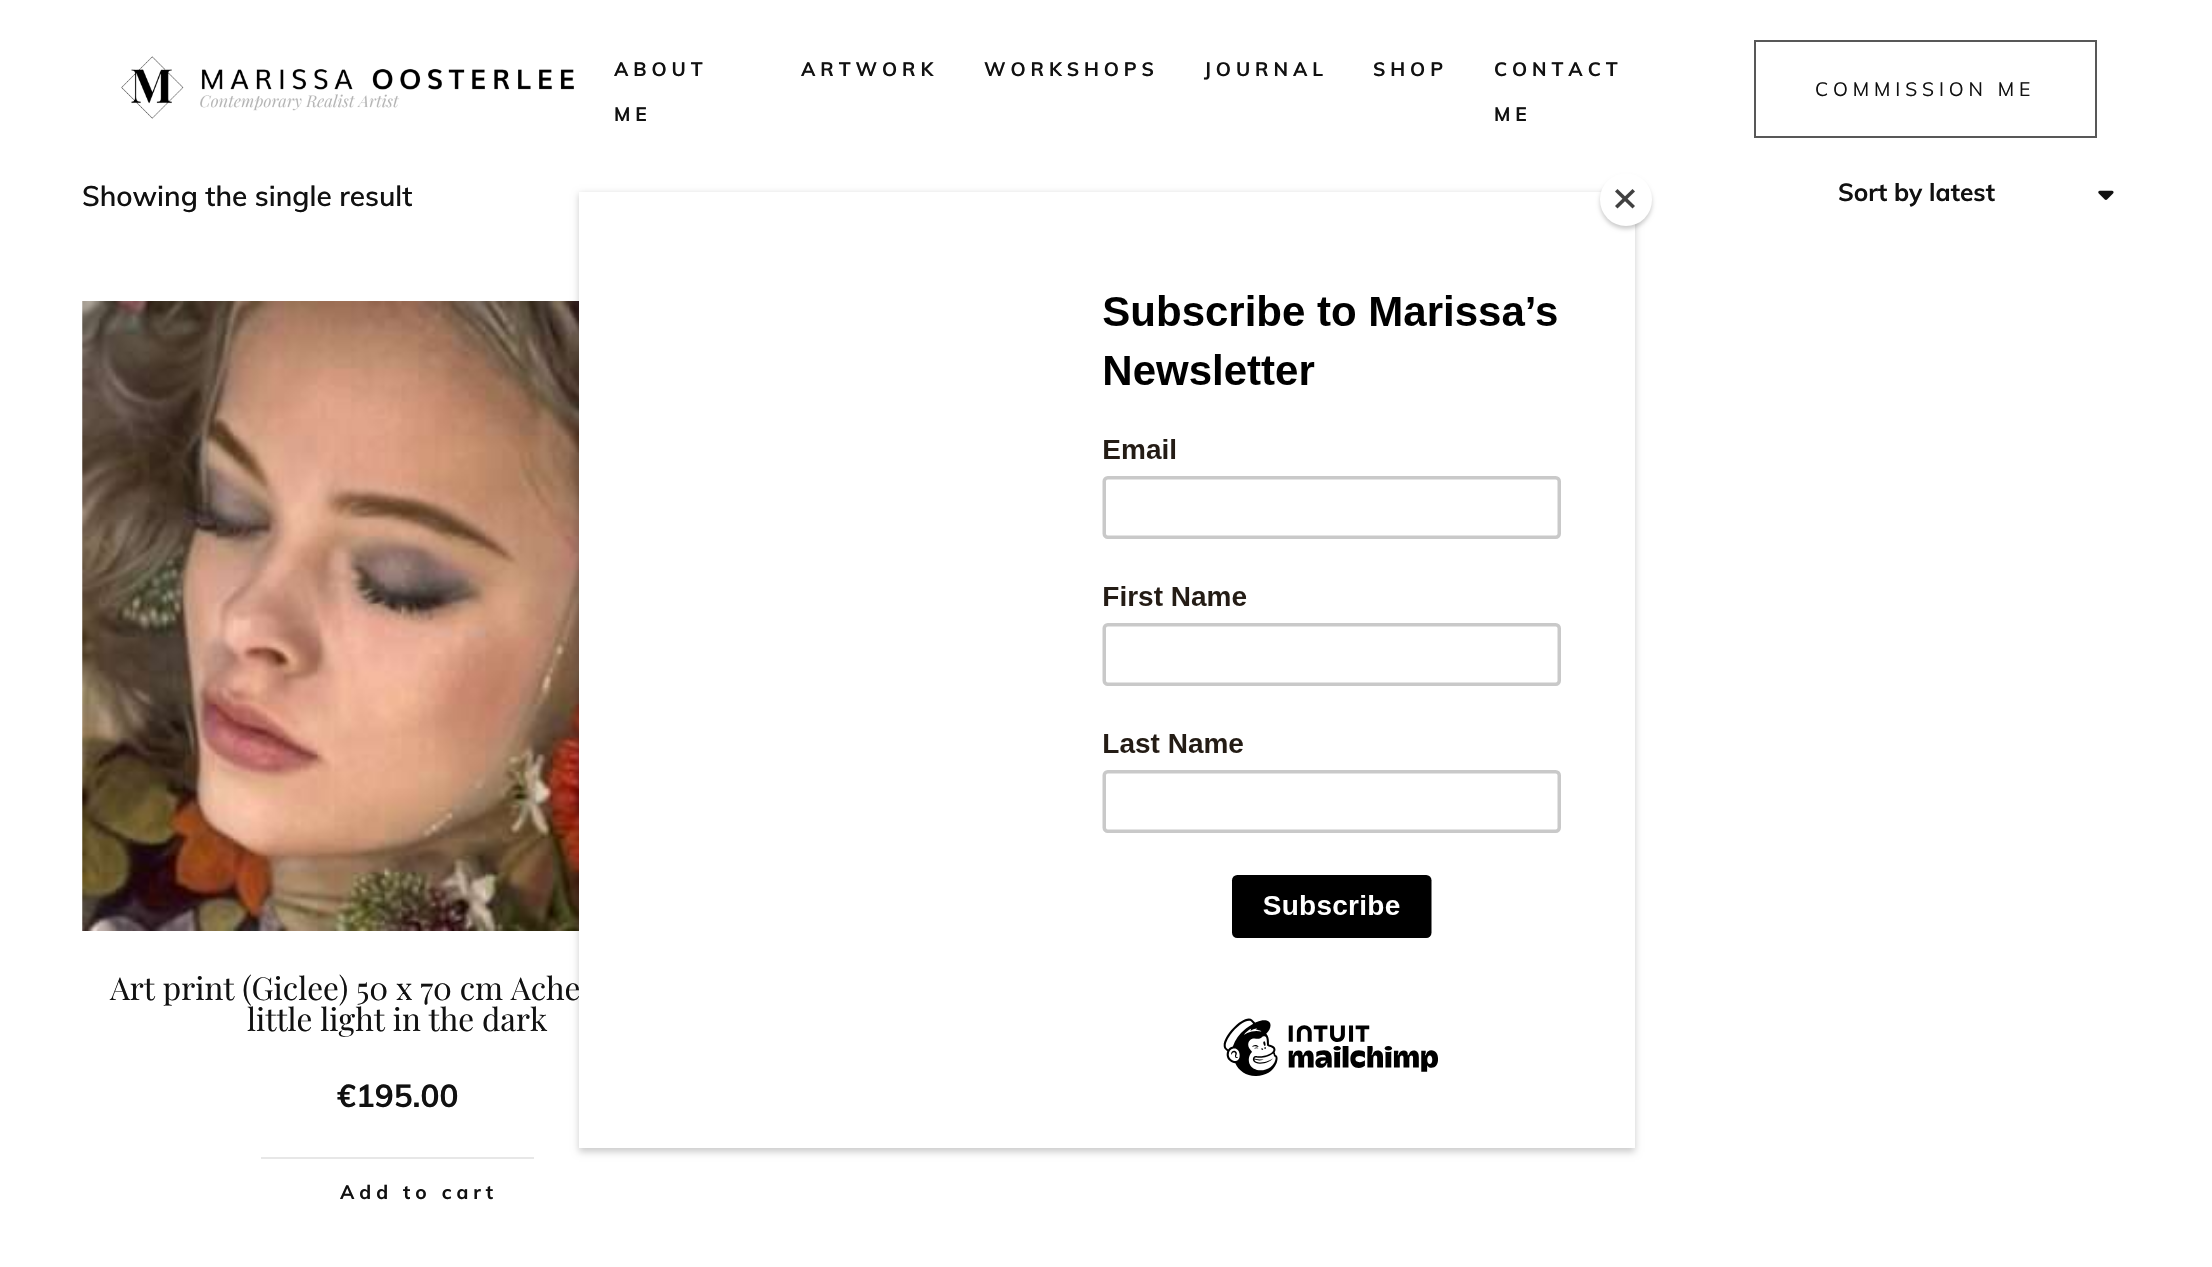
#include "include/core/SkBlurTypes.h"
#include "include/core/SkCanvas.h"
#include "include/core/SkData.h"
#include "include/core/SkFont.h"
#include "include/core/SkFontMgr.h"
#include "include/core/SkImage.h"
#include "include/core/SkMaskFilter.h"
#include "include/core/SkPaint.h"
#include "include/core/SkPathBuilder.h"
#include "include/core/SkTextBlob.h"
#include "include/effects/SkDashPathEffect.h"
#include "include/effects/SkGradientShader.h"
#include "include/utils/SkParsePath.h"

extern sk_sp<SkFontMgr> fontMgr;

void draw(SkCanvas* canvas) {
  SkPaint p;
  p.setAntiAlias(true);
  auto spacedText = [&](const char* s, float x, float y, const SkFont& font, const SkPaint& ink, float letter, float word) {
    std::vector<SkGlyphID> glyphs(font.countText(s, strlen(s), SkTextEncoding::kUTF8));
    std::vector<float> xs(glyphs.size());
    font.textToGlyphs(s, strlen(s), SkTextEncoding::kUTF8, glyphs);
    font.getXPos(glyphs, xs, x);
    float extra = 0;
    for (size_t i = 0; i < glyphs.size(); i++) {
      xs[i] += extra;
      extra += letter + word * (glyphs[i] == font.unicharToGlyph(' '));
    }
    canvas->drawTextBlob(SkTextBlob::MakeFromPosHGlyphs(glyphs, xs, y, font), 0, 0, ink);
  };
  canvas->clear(SK_ColorWHITE);
  canvas->drawImageRect(SkImages::DeferredFromEncodedData(SkData::MakeFromFileName("images/1.png")), SkRect::MakeLTRB(121, 56, 574, 119), SkSamplingOptions());
  p.setStyle(SkPaint::kStroke_Style);
  p.setStrokeWidth(2);
  p.setColor(SkColorSetRGB(88, 88, 88));
  canvas->drawRect(SkRect::MakeLTRB(1755, 41, 2096, 137), p);
  canvas->drawImageRect(SkImages::DeferredFromEncodedData(SkData::MakeFromFileName("images/4.png")), SkRect::MakeLTRB(82, 301, 579, 931), SkSamplingOptions());
  p.setStyle(SkPaint::kFill_Style);
  p.setColor(SkColorSetARGB(51, 0, 0, 0));
  p.setMaskFilter(SkMaskFilter::MakeBlur(kNormal_SkBlurStyle, 3.5f));
  canvas->drawRect(SkRect::MakeLTRB(579, 194, 1635, 1152), p);
  p.setMaskFilter(nullptr);
  canvas->drawImageRect(SkImages::DeferredFromEncodedData(SkData::MakeFromFileName("images/3.png")), SkRect::MakeLTRB(2098, 190, 2114, 200), SkSamplingOptions());
  p.setColor(SkColorSetRGB(231, 231, 231));
  canvas->drawRect(SkRect::MakeLTRB(261, 1157, 534, 1159), p);
  SkFont font1(fontMgr->matchFamilyStyle("Muli", SkFontStyle::Bold()), 19.25f);
  font1.setSubpixel(true);
  p.setColor(SkColorSetRGB(17, 17, 17));
  spacedText("ABOUT", 614, 76, font1, p, 4.9f, 0);
  spacedText("ME", 614, 121, font1, p, 4.9f, 0);
  spacedText("ARTWORK", 801, 76, font1, p, 4.9f, 0);
  spacedText("WORKSHOPS", 984, 76, font1, p, 4.9f, 0);
  spacedText("JOURNAL", 1204, 76, font1, p, 4.9f, 0);
  spacedText("SHOP", 1373, 76, font1, p, 4.9f, 0);
  spacedText("CONTACT", 1494, 76, font1, p, 4.9f, 0);
  spacedText("ME", 1494, 121, font1, p, 4.9f, 0);
  SkFont font2(fontMgr->matchFamilyStyle("Muli", SkFontStyle::Normal()), 19.25f);
  font2.setSubpixel(true);
  spacedText("COMMISSION ME", 1815, 96, font2, p, 4.9f, 0);
  SkFont font3(fontMgr->matchFamilyStyle("Muli", SkFontStyle(600, SkFontStyle::kNormal_Width, SkFontStyle::kUpright_Slant)), 28);
  font3.setSubpixel(true);
  canvas->drawString("Showing the single result", 82, 206, font3, p);
  SkFont font4(fontMgr->matchFamilyStyle("Muli", SkFontStyle::Bold()), 24.5f);
  font4.setSubpixel(true);
  canvas->drawString("Sort by latest", 1838, 201, font4, p);
  SkFont font5(fontMgr->matchFamilyStyle("Playfair Display", SkFontStyle::Normal()), 31.5f);
  font5.setSubpixel(true);
  canvas->drawString("Art print (Giclee) 50 x 70 cm Ache", 110, 1000, font5, p);
  canvas->drawImageRect(SkImages::DeferredFromEncodedData(SkData::MakeFromFileName("images/2.png")), SkRect::MakeLTRB(579, 192, 1635, 1148), SkSamplingOptions());
  p.setColor(SkColorSetARGB(51, 0, 0, 0));
  p.setMaskFilter(SkMaskFilter::MakeBlur(kNormal_SkBlurStyle, 2));
  canvas->drawRoundRect(SkRect::MakeLTRB(1600, 177, 1652, 229), 26, 26, p);
  p.setMaskFilter(nullptr);
  p.setColor(SK_ColorWHITE);
  canvas->drawRoundRect(SkRect::MakeLTRB(1600, 173, 1652, 226), 26, 26, p);
  p.setColor(SkColorSetRGB(65, 65, 65));
  canvas->drawPath(SkPathBuilder().moveTo(1632.5f, 189).lineTo(1635, 191.5f).lineTo(1617.5f, 208.5f).lineTo(1615, 206).close().detach(), p);
  canvas->drawPath(SkPathBuilder().moveTo(1615, 191.5f).lineTo(1617.5f, 189).lineTo(1635, 206).lineTo(1632.5f, 208.5f).close().detach(), p);
  p.setColor(SkColorSetRGB(17, 17, 17));
  canvas->drawString("little light in the dark", 247, 1031, font5, p);
  SkFont font6(fontMgr->matchFamilyStyle("Muli", SkFontStyle::Bold()), 31.5f);
  font6.setSubpixel(true);
  canvas->drawString("€195.00", 337, 1107, font6, p);
  spacedText("Add to cart", 340, 1199, font1, p, 4.9f, 0);
}
